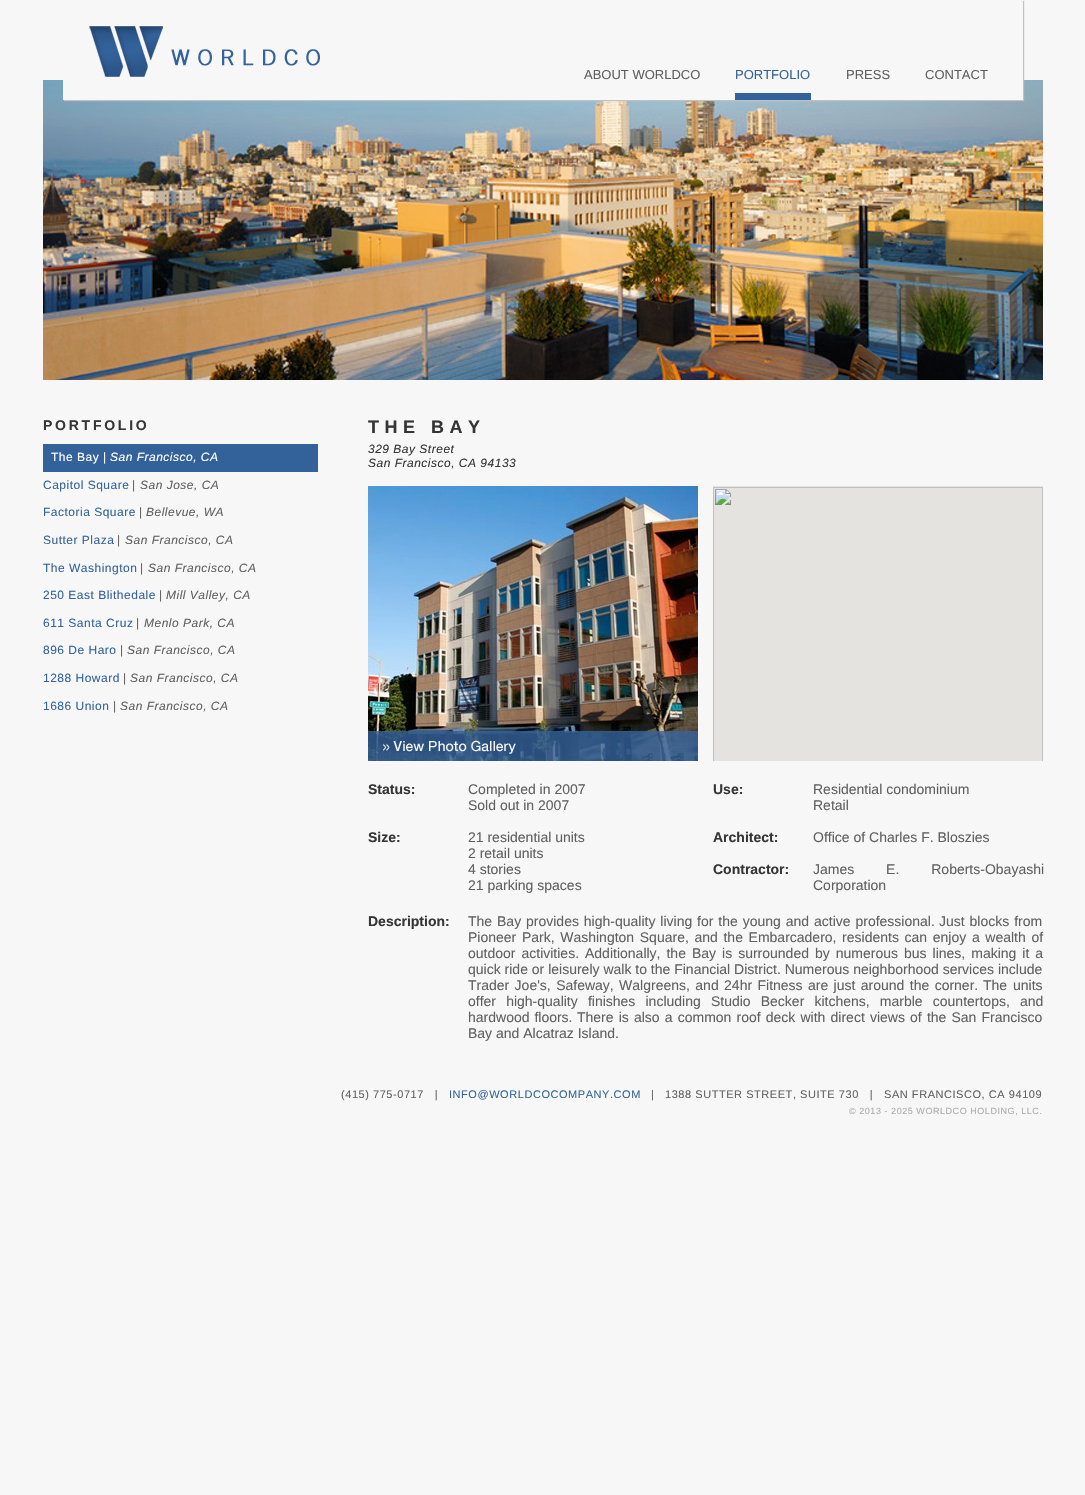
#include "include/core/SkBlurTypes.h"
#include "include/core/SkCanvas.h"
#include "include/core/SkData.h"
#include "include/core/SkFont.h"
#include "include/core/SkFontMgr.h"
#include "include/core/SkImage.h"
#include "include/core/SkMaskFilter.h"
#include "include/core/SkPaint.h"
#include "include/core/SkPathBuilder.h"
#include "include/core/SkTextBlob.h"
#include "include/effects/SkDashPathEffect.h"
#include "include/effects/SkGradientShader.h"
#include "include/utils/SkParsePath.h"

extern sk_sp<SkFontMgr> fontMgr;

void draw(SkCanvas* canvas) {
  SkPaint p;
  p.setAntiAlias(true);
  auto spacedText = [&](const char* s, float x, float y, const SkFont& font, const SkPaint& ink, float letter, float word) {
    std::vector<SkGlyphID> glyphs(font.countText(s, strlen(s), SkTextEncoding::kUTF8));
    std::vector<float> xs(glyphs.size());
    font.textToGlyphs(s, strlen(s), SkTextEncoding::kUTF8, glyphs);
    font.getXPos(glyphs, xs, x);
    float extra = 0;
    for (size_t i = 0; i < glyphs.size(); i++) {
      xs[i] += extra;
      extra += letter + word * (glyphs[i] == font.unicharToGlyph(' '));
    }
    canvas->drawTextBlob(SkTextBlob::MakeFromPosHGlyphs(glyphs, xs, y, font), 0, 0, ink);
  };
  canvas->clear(SkColorSetRGB(247, 247, 247));
  canvas->drawImageRect(SkImages::DeferredFromEncodedData(SkData::MakeFromFileName("images/2.png")), SkRect::MakeLTRB(43, 80, 1043, 380), SkSamplingOptions());
  p.setColor(SkColorSetRGB(193, 193, 193));
  p.setMaskFilter(SkMaskFilter::MakeBlur(kNormal_SkBlurStyle, 0.5f));
  canvas->drawRect(SkRect::MakeLTRB(64, 1, 1024, 101), p);
  p.setMaskFilter(nullptr);
  p.setColor(SkColorSetRGB(247, 247, 247));
  canvas->drawRect(SkRect::MakeLTRB(63, 0, 1023, 100), p);
  canvas->drawImageRect(SkImages::DeferredFromEncodedData(SkData::MakeFromFileName("images/1.png")), SkRect::MakeLTRB(89, 26, 320, 77), SkSamplingOptions());
  p.setColor(SkColorSetRGB(51, 98, 155));
  canvas->drawRect(SkRect::MakeLTRB(735, 93, 811, 100), p);
  canvas->drawRect(SkRect::MakeLTRB(43, 444, 318, 472), p);
  canvas->drawImageRect(SkImages::DeferredFromEncodedData(SkData::MakeFromFileName("images/3.png")), SkRect::MakeLTRB(368, 486, 698, 761), SkSamplingOptions());
  canvas->drawImageRect(SkImages::DeferredFromEncodedData(SkData::MakeFromFileName("images/4.png")), SkRect::MakeLTRB(368, 731, 698, 761), SkSamplingOptions());
  canvas->drawImageRect(SkImages::DeferredFromEncodedData(SkData::MakeFromFileName("images/5.png")), SkRect::MakeLTRB(713, 486, 1043, 761), SkSamplingOptions());
  SkFont font1(fontMgr->matchFamilyStyle("Liberation Sans", SkFontStyle::Normal()), 13);
  font1.setSubpixel(true);
  p.setColor(SkColorSetRGB(96, 96, 96));
  canvas->drawString("ABOUT WORLDCO", 584, 79, font1, p);
  p.setColor(SkColorSetRGB(51, 98, 155));
  canvas->drawString("PORTFOLIO", 735, 79, font1, p);
  p.setColor(SkColorSetRGB(96, 96, 96));
  canvas->drawString("PRESS", 846, 79, font1, p);
  canvas->drawString("CONTACT", 925, 79, font1, p);
  SkFont font2(fontMgr->matchFamilyStyle("Liberation Sans", SkFontStyle::Bold()), 14);
  font2.setSubpixel(true);
  p.setColor(SkColorSetRGB(53, 53, 53));
  spacedText("PORTFOLIO", 43, 430, font2, p, 2.75f, 0);
  SkFont font3(fontMgr->matchFamilyStyle("Liberation Sans", SkFontStyle::Normal()), 12);
  font3.setSubpixel(true);
  p.setColor(SK_ColorWHITE);
  spacedText("The Bay |", 51, 461, font3, p, 0.5f, 0);
  SkFont font4(fontMgr->matchFamilyStyle("Liberation Sans", SkFontStyle::Italic()), 12);
  font4.setSubpixel(true);
  spacedText("San Francisco, CA", 110, 461, font4, p, 0.5f, 0);
  p.setColor(SkColorSetRGB(51, 98, 155));
  spacedText("Capitol Square", 43, 489, font3, p, 0.5f, 0);
  p.setColor(SkColorSetRGB(96, 96, 96));
  spacedText("|", 132, 489, font3, p, 0.5f, 0);
  spacedText("San Jose, CA", 140, 489, font4, p, 0.5f, 0);
  p.setColor(SkColorSetRGB(51, 98, 155));
  spacedText("Factoria Square", 43, 516, font3, p, 0.5f, 0);
  p.setColor(SkColorSetRGB(96, 96, 96));
  spacedText("|", 139, 516, font3, p, 0.5f, 0);
  spacedText("Bellevue, WA", 146, 516, font4, p, 0.5f, 0);
  p.setColor(SkColorSetRGB(51, 98, 155));
  spacedText("Sutter Plaza", 43, 544, font3, p, 0.5f, 0);
  p.setColor(SkColorSetRGB(96, 96, 96));
  spacedText("|", 117, 544, font3, p, 0.5f, 0);
  spacedText("San Francisco, CA", 125, 544, font4, p, 0.5f, 0);
  p.setColor(SkColorSetRGB(51, 98, 155));
  spacedText("The Washington", 43, 572, font3, p, 0.5f, 0);
  p.setColor(SkColorSetRGB(96, 96, 96));
  spacedText("|", 140, 572, font3, p, 0.5f, 0);
  spacedText("San Francisco, CA", 148, 572, font4, p, 0.5f, 0);
  p.setColor(SkColorSetRGB(51, 98, 155));
  spacedText("250 East Blithedale", 43, 599, font3, p, 0.5f, 0);
  p.setColor(SkColorSetRGB(96, 96, 96));
  spacedText("|", 159, 599, font3, p, 0.5f, 0);
  spacedText("Mill Valley, CA", 166, 599, font4, p, 0.5f, 0);
  p.setColor(SkColorSetRGB(51, 98, 155));
  spacedText("611 Santa Cruz", 43, 627, font3, p, 0.5f, 0);
  p.setColor(SkColorSetRGB(96, 96, 96));
  spacedText("|", 136, 627, font3, p, 0.5f, 0);
  spacedText("Menlo Park, CA", 144, 627, font4, p, 0.5f, 0);
  p.setColor(SkColorSetRGB(51, 98, 155));
  spacedText("896 De Haro", 43, 654, font3, p, 0.5f, 0);
  p.setColor(SkColorSetRGB(96, 96, 96));
  spacedText("|", 120, 654, font3, p, 0.5f, 0);
  spacedText("San Francisco, CA", 127, 654, font4, p, 0.5f, 0);
  p.setColor(SkColorSetRGB(51, 98, 155));
  spacedText("1288 Howard", 43, 682, font3, p, 0.5f, 0);
  p.setColor(SkColorSetRGB(96, 96, 96));
  spacedText("|", 123, 682, font3, p, 0.5f, 0);
  spacedText("San Francisco, CA", 130, 682, font4, p, 0.5f, 0);
  p.setColor(SkColorSetRGB(51, 98, 155));
  spacedText("1686 Union", 43, 710, font3, p, 0.5f, 0);
  p.setColor(SkColorSetRGB(96, 96, 96));
  spacedText("|", 113, 710, font3, p, 0.5f, 0);
  spacedText("San Francisco, CA", 120, 710, font4, p, 0.5f, 0);
  SkFont font5(fontMgr->matchFamilyStyle("Liberation Sans", SkFontStyle::Bold()), 18);
  font5.setSubpixel(true);
  p.setColor(SkColorSetRGB(53, 53, 53));
  spacedText("THE BAY", 368, 433, font5, p, 5.5f, 0);
  spacedText("329 Bay Street", 368, 453, font4, p, 0.5f, 0);
  spacedText("San Francisco, CA 94133", 368, 467, font4, p, 0.5f, 0);
  canvas->drawString("Status:", 368, 794, font2, p);
  SkFont font6(fontMgr->matchFamilyStyle("Liberation Sans", SkFontStyle::Normal()), 14);
  font6.setSubpixel(true);
  p.setColor(SkColorSetRGB(96, 96, 96));
  canvas->drawString("Completed in 2007", 468, 794, font6, p);
  canvas->drawString("Sold out in 2007", 468, 810, font6, p);
  p.setColor(SkColorSetRGB(53, 53, 53));
  canvas->drawString("Size:", 368, 842, font2, p);
  p.setColor(SkColorSetRGB(96, 96, 96));
  canvas->drawString("21 residential units", 468, 842, font6, p);
  canvas->drawString("2 retail units", 468, 858, font6, p);
  canvas->drawString("4 stories", 468, 874, font6, p);
  canvas->drawString("21 parking spaces", 468, 890, font6, p);
  p.setColor(SkColorSetRGB(53, 53, 53));
  canvas->drawString("Use:", 713, 794, font2, p);
  p.setColor(SkColorSetRGB(96, 96, 96));
  canvas->drawString("Residential condominium", 813, 794, font6, p);
  canvas->drawString("Retail", 813, 810, font6, p);
  p.setColor(SkColorSetRGB(53, 53, 53));
  canvas->drawString("Architect:", 713, 842, font2, p);
  p.setColor(SkColorSetRGB(96, 96, 96));
  canvas->drawString("Office of Charles F. Bloszies", 813, 842, font6, p);
  p.setColor(SkColorSetRGB(53, 53, 53));
  canvas->drawString("Contractor:", 713, 874, font2, p);
  p.setColor(SkColorSetRGB(96, 96, 96));
  spacedText("James E. Roberts-Obayashi", 813, 874, font6, p, 0, 28);
  canvas->drawString("Corporation", 813, 890, font6, p);
  p.setColor(SkColorSetRGB(53, 53, 53));
  canvas->drawString("Description:", 368, 926, font2, p);
  p.setColor(SkColorSetRGB(96, 96, 96));
  spacedText("The Bay provides high-quality living for the young and active professional.", 468, 926, font6, p, 0, 1);
  spacedText("Just blocks from", 939, 926, font6, p, 0, 1);
  spacedText("Pioneer Park, Washington Square, and the Embarcadero, residents can enjoy a wealth of", 468, 942, font6, p, 0, 1.75f);
  spacedText("outdoor activities.", 468, 958, font6, p, 0, 2.1f);
  spacedText("Additionally, the Bay is surrounded by numerous bus lines, making it a", 585, 958, font6, p, 0, 2.1f);
  canvas->drawString("quick ride or leisurely walk to the Financial District. Numerous neighborhood services include", 468, 974, font6, p);
  spacedText("Trader Joe's, Safeway, Walgreens, and 24hr Fitness are just around the corner.", 468, 990, font6, p, 0, 1.5f);
  spacedText("The units", 983, 990, font6, p, 0, 2);
  spacedText("offer high-quality finishes including Studio Becker kitchens, marble countertops, and", 468, 1006, font6, p, 0, 6.25f);
  spacedText("hardwood floors.", 468, 1022, font6, p, 0, 1);
  spacedText("There is also a common roof deck with direct views of the San Francisco", 577, 1022, font6, p, 0, 1.25f);
  canvas->drawString("Bay and Alcatraz Island.", 468, 1038, font6, p);
  SkFont font7(fontMgr->matchFamilyStyle("Liberation Sans", SkFontStyle::Normal()), 11);
  font7.setSubpixel(true);
  spacedText("(415) 775-0717   |", 341, 1098, font7, p, 0.55f, 0);
  p.setColor(SkColorSetRGB(51, 98, 155));
  spacedText("INFO@WORLDCOCOMPANY.COM", 449, 1098, font7, p, 0.55f, 0);
  p.setColor(SkColorSetRGB(96, 96, 96));
  spacedText("|", 651, 1098, font7, p, 0.55f, 0);
  spacedText("1388 SUTTER STREET, SUITE 730   |", 665, 1098, font7, p, 0.55f, 0);
  spacedText("SAN FRANCISCO, CA 94109", 884, 1098, font7, p, 0.55f, 0);
  SkFont font8(fontMgr->matchFamilyStyle("Liberation Sans", SkFontStyle::Normal()), 9);
  font8.setSubpixel(true);
  p.setColor(SkColorSetRGB(172, 172, 172));
  spacedText("© 2013 - 2025 WORLDCO HOLDING, LLC.", 849, 1114, font8, p, 0.55f, 0);
}
